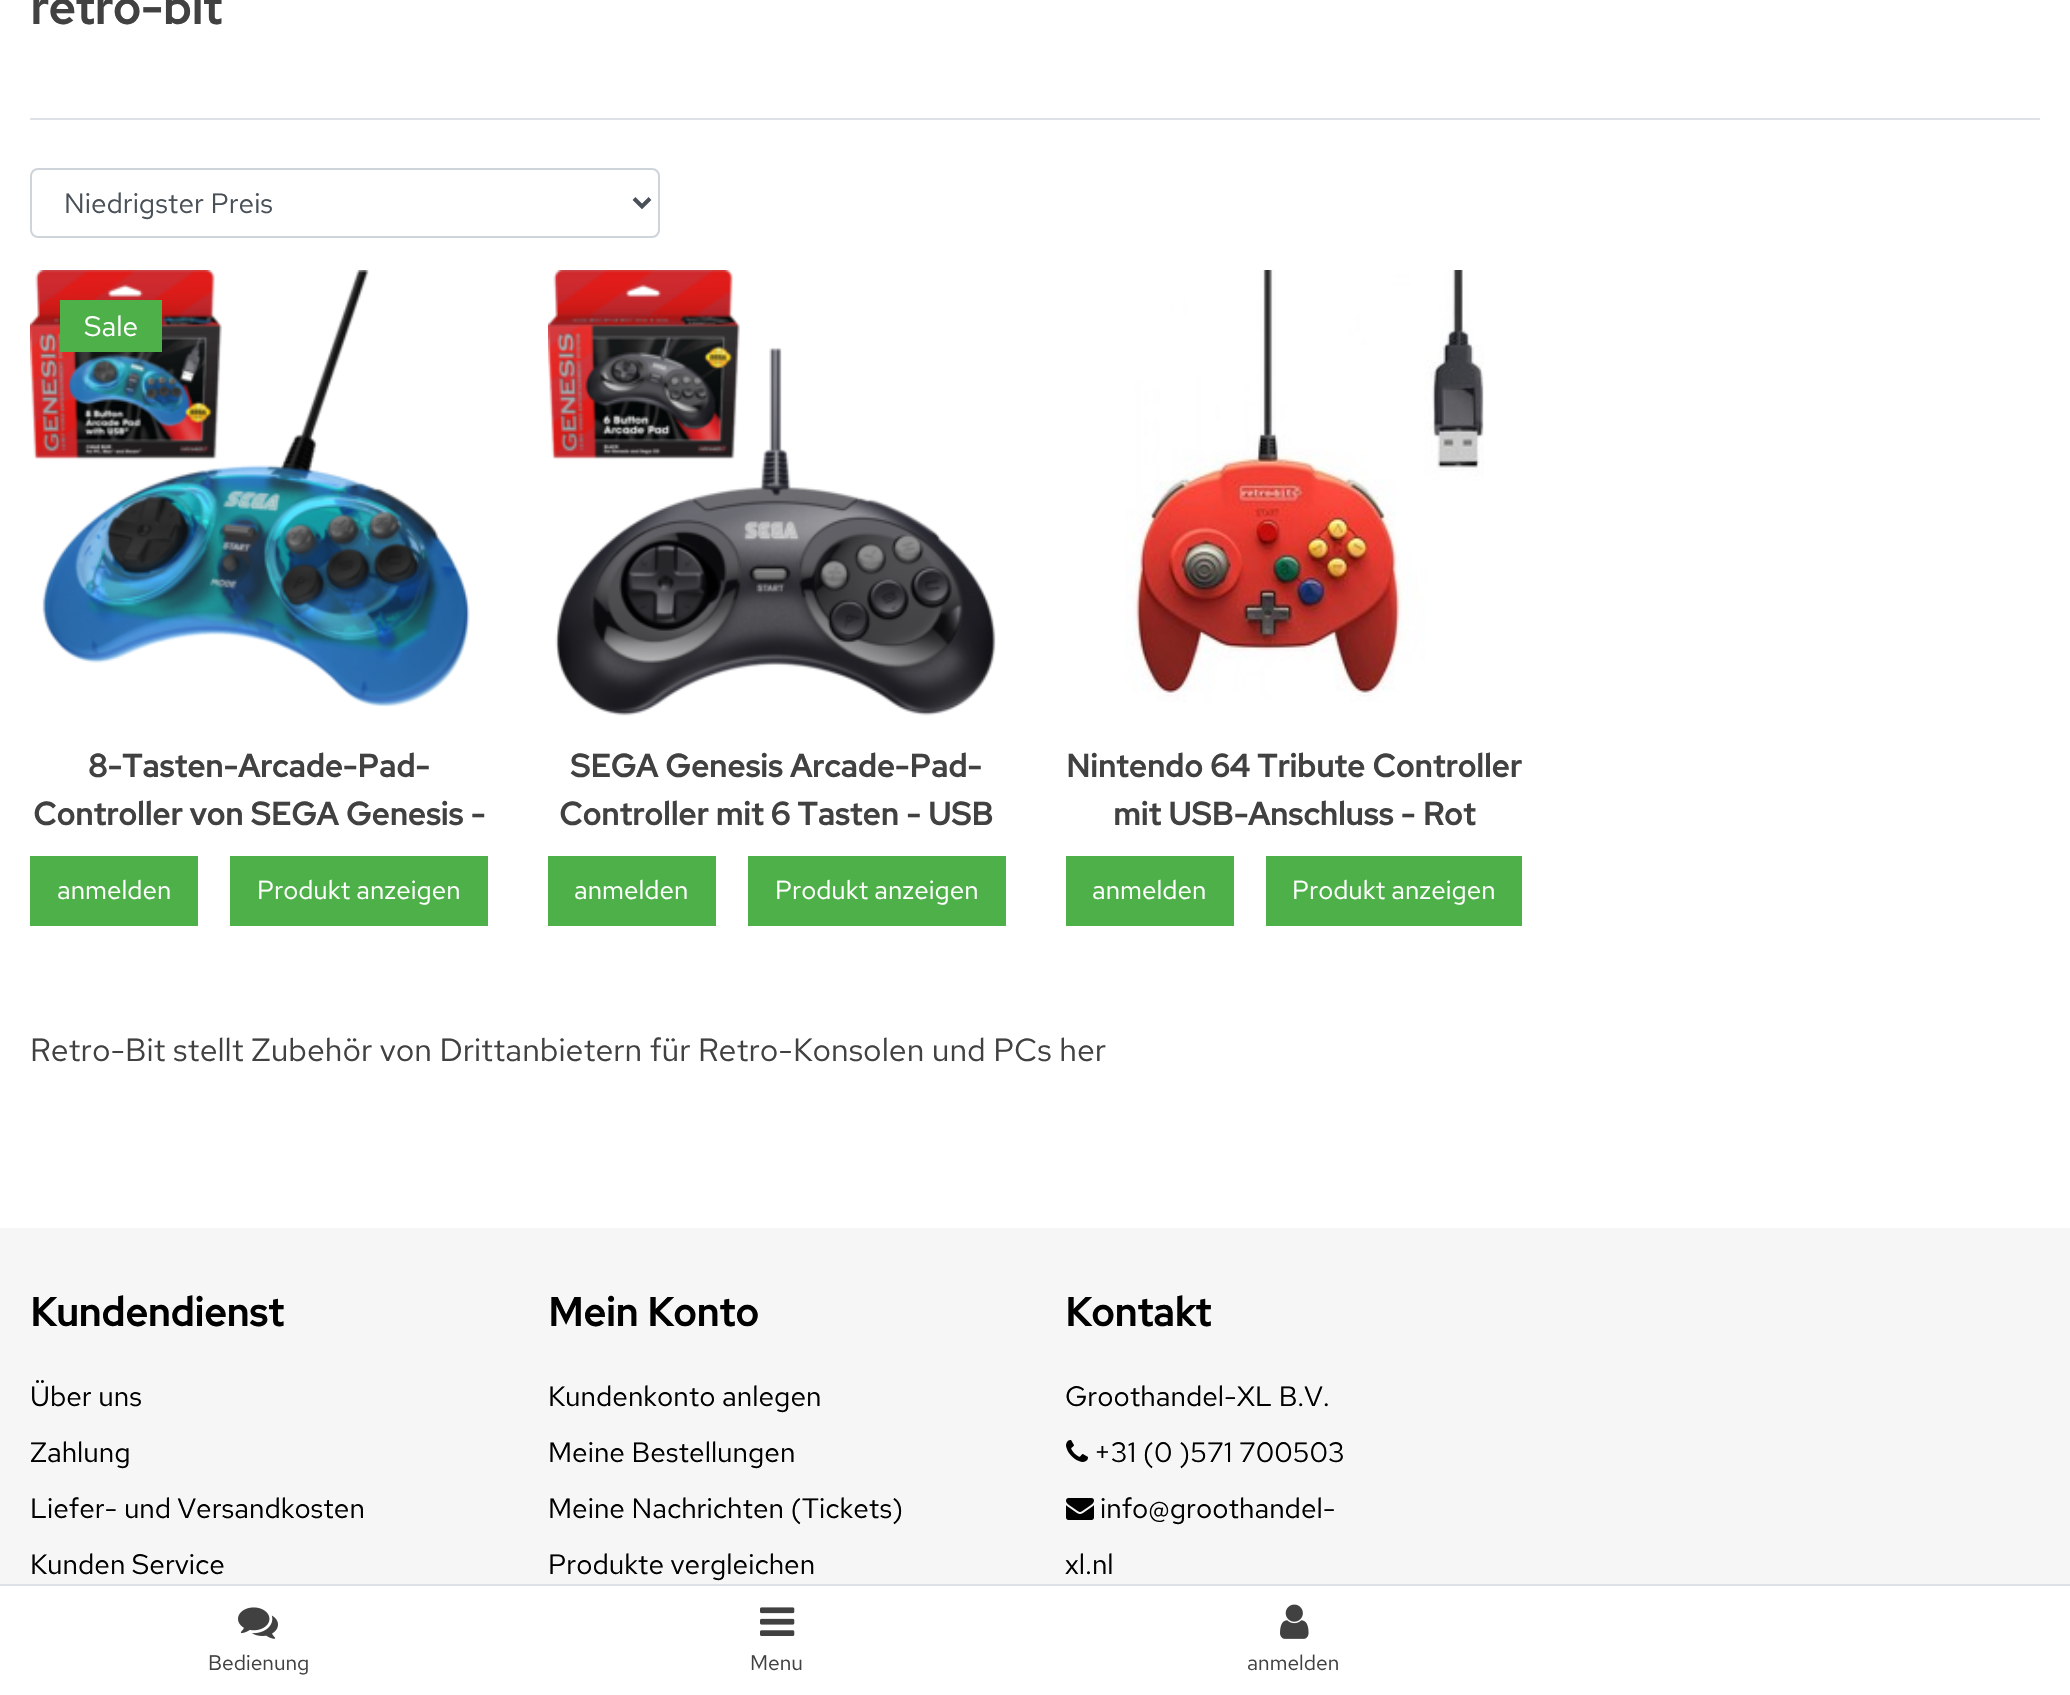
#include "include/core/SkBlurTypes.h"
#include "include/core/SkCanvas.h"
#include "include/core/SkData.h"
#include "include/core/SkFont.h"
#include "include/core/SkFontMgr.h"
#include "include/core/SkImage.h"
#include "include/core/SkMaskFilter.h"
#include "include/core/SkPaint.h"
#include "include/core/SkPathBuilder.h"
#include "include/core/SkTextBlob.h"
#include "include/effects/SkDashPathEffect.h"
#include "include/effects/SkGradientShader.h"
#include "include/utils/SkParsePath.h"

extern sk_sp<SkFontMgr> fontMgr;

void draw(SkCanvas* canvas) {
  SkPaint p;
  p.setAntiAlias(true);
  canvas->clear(SK_ColorWHITE);
  p.setColor(SkColorSetRGB(222, 226, 230));
  canvas->drawRect(SkRect::MakeLTRB(30, 118, 2040, 120), p);
  p.setStyle(SkPaint::kStroke_Style);
  p.setStrokeWidth(2);
  p.setColor(SkColorSetRGB(206, 212, 218));
  canvas->drawRoundRect(SkRect::MakeLTRB(31, 169, 659, 237), 7, 7, p);
  p.setStrokeWidth(4);
  p.setColor(SkColorSetRGB(73, 80, 87));
  canvas->drawPath(SkPathBuilder().moveTo(634, 198.5f).lineTo(642, 206.5f).lineTo(650, 198.5f).detach(), p);
  canvas->drawImageRect(SkImages::DeferredFromEncodedData(SkData::MakeFromFileName("images/1.png")), SkRect::MakeLTRB(30, 270, 470, 708), SkSamplingOptions());
  p.setStyle(SkPaint::kFill_Style);
  p.setColor(SkColorSetRGB(77, 176, 72));
  canvas->drawRect(SkRect::MakeLTRB(60, 300, 162, 352), p);
  canvas->drawRect(SkRect::MakeLTRB(30, 856, 198, 926), p);
  canvas->drawRect(SkRect::MakeLTRB(230, 856, 488, 926), p);
  canvas->drawImageRect(SkImages::DeferredFromEncodedData(SkData::MakeFromFileName("images/2.png")), SkRect::MakeLTRB(548, 270, 996, 716), SkSamplingOptions());
  canvas->drawRect(SkRect::MakeLTRB(548, 856, 716, 926), p);
  canvas->drawRect(SkRect::MakeLTRB(748, 856, 1006, 926), p);
  canvas->drawImageRect(SkImages::DeferredFromEncodedData(SkData::MakeFromFileName("images/3.png")), SkRect::MakeLTRB(1125, 270, 1484, 702), SkSamplingOptions());
  canvas->drawRect(SkRect::MakeLTRB(1066, 856, 1234, 926), p);
  canvas->drawRect(SkRect::MakeLTRB(1266, 856, 1522, 926), p);
  p.setColor(SkColorSetRGB(246, 246, 246));
  canvas->drawRect(SkRect::MakeLTRB(0, 1228, 2070, 1584), p);
  canvas->drawImageRect(SkImages::DeferredFromEncodedData(SkData::MakeFromFileName("images/4.png")), SkRect::MakeLTRB(1066, 1440, 1088, 1462), SkSamplingOptions());
  canvas->drawImageRect(SkImages::DeferredFromEncodedData(SkData::MakeFromFileName("images/5.png")), SkRect::MakeLTRB(1066, 1498, 1094, 1520), SkSamplingOptions());
  p.setColor(SkColorSetRGB(222, 226, 230));
  canvas->drawRect(SkRect::MakeLTRB(0, 1584, 2070, 1586), p);
  canvas->drawImageRect(SkImages::DeferredFromEncodedData(SkData::MakeFromFileName("images/6.png")), SkRect::MakeLTRB(238, 1607, 278, 1639), SkSamplingOptions());
  canvas->drawImageRect(SkImages::DeferredFromEncodedData(SkData::MakeFromFileName("images/7.png")), SkRect::MakeLTRB(760, 1607, 795, 1636), SkSamplingOptions());
  canvas->drawImageRect(SkImages::DeferredFromEncodedData(SkData::MakeFromFileName("images/8.png")), SkRect::MakeLTRB(1280, 1604, 1309, 1639), SkSamplingOptions());
  SkFont font1(fontMgr->matchFamilyStyle("Red Hat Text", SkFontStyle::Bold()), 48);
  font1.setSubpixel(true);
  p.setColor(SkColorSetRGB(65, 65, 65));
  canvas->drawString("retro-bit", 30, 24, font1, p);
  SkFont font2(fontMgr->matchFamilyStyle("Red Hat Text", SkFontStyle::Normal()), 28);
  font2.setSubpixel(true);
  p.setColor(SkColorSetRGB(73, 80, 87));
  canvas->drawString("Niedrigster Preis", 64, 213, font2, p);
  p.setColor(SK_ColorWHITE);
  canvas->drawString("Sale", 84, 336, font2, p);
  SkFont font3(fontMgr->matchFamilyStyle("Red Hat Text", SkFontStyle::Bold()), 32);
  font3.setSubpixel(true);
  p.setColor(SkColorSetRGB(65, 65, 65));
  canvas->drawString("8-Tasten-Arcade-Pad-", 88, 777, font3, p);
  canvas->drawString("Controller von SEGA Genesis -", 33, 825, font3, p);
  SkFont font4(fontMgr->matchFamilyStyle("Red Hat Text", SkFontStyle::Normal()), 26);
  font4.setSubpixel(true);
  p.setColor(SK_ColorWHITE);
  canvas->drawString("anmelden", 57, 899, font4, p);
  canvas->drawString("Produkt anzeigen", 257, 899, font4, p);
  p.setColor(SkColorSetRGB(65, 65, 65));
  canvas->drawString("SEGA Genesis Arcade-Pad-", 570, 777, font3, p);
  canvas->drawString("Controller mit 6 Tasten - USB", 559, 825, font3, p);
  p.setColor(SK_ColorWHITE);
  canvas->drawString("anmelden", 574, 899, font4, p);
  canvas->drawString("Produkt anzeigen", 775, 899, font4, p);
  p.setColor(SkColorSetRGB(65, 65, 65));
  canvas->drawString("Nintendo 64 Tribute Controller", 1066, 777, font3, p);
  canvas->drawString("mit USB-Anschluss - Rot", 1113, 825, font3, p);
  p.setColor(SK_ColorWHITE);
  canvas->drawString("anmelden", 1092, 899, font4, p);
  canvas->drawString("Produkt anzeigen", 1292, 899, font4, p);
  SkFont font5(fontMgr->matchFamilyStyle("Red Hat Text", SkFontStyle::Normal()), 32);
  font5.setSubpixel(true);
  p.setColor(SkColorSetRGB(65, 65, 65));
  canvas->drawString("Retro-Bit stellt Zubehör von Drittanbietern für Retro-Konsolen und PCs her", 30, 1061, font5, p);
  SkFont font6(fontMgr->matchFamilyStyle("Red Hat Text", SkFontStyle::Bold()), 40);
  font6.setSubpixel(true);
  p.setColor(SK_ColorBLACK);
  canvas->drawString("Kundendienst", 30, 1326, font6, p);
  canvas->drawString("Über uns", 30, 1406, font2, p);
  canvas->drawString("Zahlung", 30, 1462, font2, p);
  canvas->drawString("Liefer- und Versandkosten", 30, 1518, font2, p);
  canvas->drawString("Kunden Service", 30, 1574, font2, p);
  canvas->drawString("Mein Konto", 548, 1326, font6, p);
  canvas->drawString("Kundenkonto anlegen", 548, 1406, font2, p);
  canvas->drawString("Meine Bestellungen", 548, 1462, font2, p);
  canvas->drawString("Meine Nachrichten (Tickets)", 548, 1518, font2, p);
  canvas->drawString("Produkte vergleichen", 548, 1574, font2, p);
  canvas->drawString("Kontakt", 1065, 1326, font6, p);
  canvas->drawString("Groothandel-XL B.V.", 1065, 1406, font2, p);
  canvas->drawString("+31 (0 )571 700503", 1094, 1462, font2, p);
  canvas->drawString("info@groothandel-", 1100, 1518, font2, p);
  canvas->drawString("xl.nl", 1065, 1574, font2, p);
  SkFont font7(fontMgr->matchFamilyStyle("Red Hat Text", SkFontStyle::Normal()), 21);
  font7.setSubpixel(true);
  p.setColor(SkColorSetRGB(65, 65, 65));
  canvas->drawString("Bedienung", 208, 1670, font7, p);
  canvas->drawString("Menu", 750, 1670, font7, p);
  canvas->drawString("anmelden", 1247, 1670, font7, p);
}
